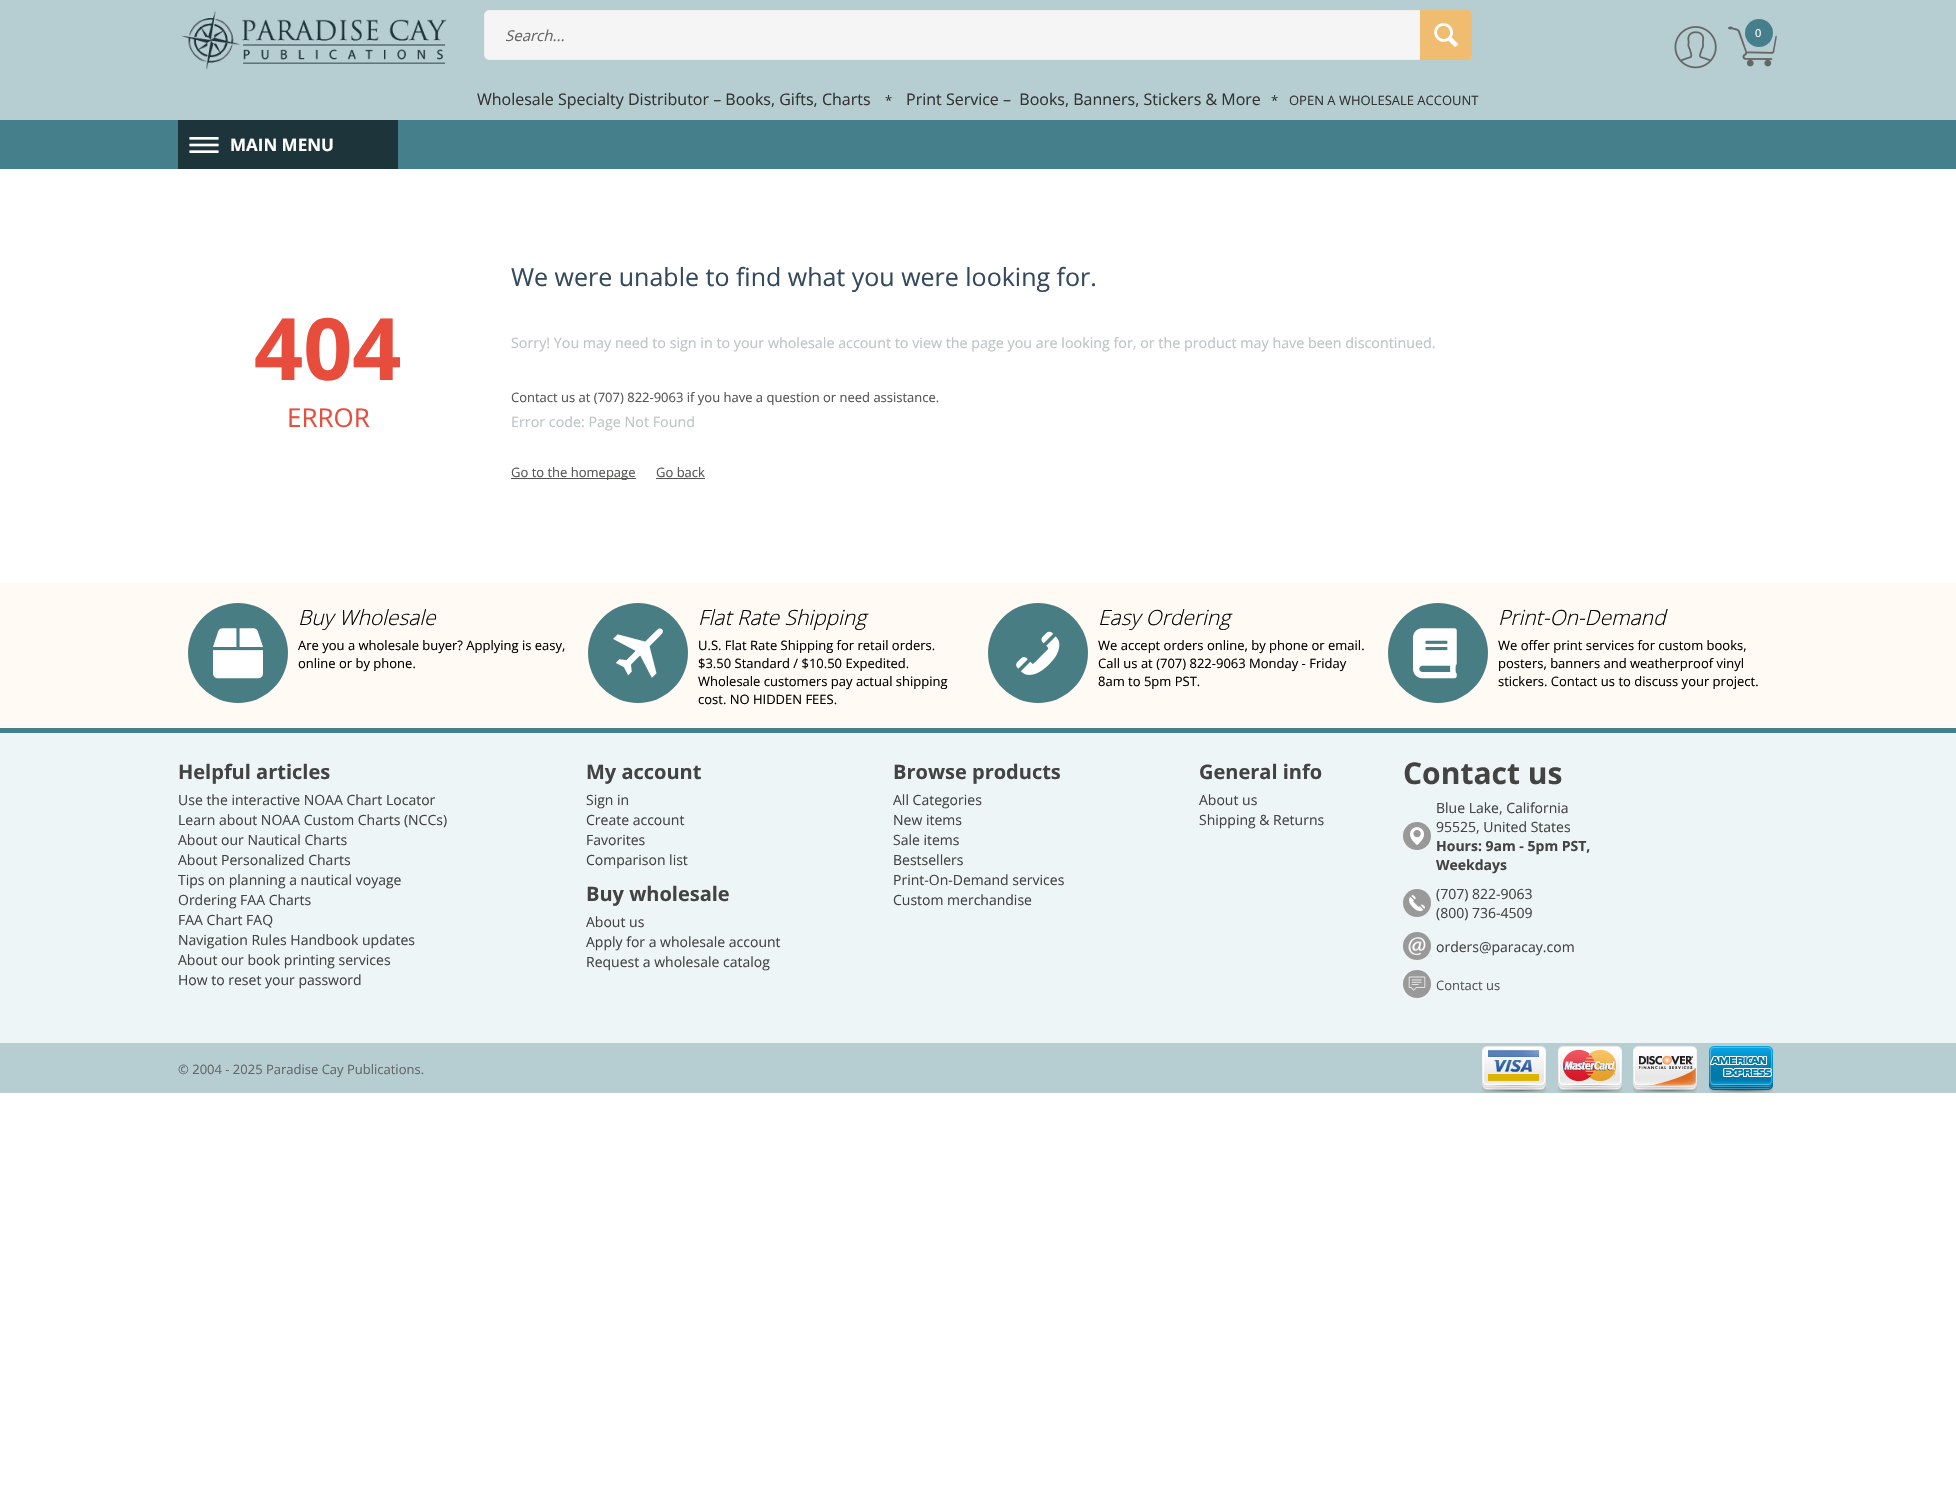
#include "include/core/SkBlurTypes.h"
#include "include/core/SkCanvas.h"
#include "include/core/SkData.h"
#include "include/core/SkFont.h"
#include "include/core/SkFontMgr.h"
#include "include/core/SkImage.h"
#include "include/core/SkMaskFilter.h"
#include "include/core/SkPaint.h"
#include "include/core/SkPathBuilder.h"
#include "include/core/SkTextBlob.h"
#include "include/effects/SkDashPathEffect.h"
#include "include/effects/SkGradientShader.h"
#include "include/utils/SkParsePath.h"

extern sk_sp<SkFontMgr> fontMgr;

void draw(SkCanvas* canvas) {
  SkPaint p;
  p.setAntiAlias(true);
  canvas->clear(SK_ColorWHITE);
  p.setColor(SkColorSetRGB(182, 205, 210));
  canvas->drawRect(SkRect::MakeLTRB(0, 0, 1956, 120), p);
  canvas->drawImageRect(SkImages::DeferredFromEncodedData(SkData::MakeFromFileName("images/1.png")), SkRect::MakeLTRB(181, 11, 447, 70), SkSamplingOptions());
  p.setColor(SkColorSetRGB(245, 245, 245));
  canvas->drawRoundRect(SkRect::MakeLTRB(484.5f, 10.5f, 1471.5f, 59.5f), 4.5f, 4.5f, p);
  p.setStyle(SkPaint::kStroke_Style);
  p.setStrokeWidth(1);
  p.setColor(SkColorSetRGB(238, 238, 238));
  canvas->drawRoundRect(SkRect::MakeLTRB(484.5f, 10.5f, 1471.5f, 59.5f), 4.5f, 4.5f, p);
  p.setStyle(SkPaint::kFill_Style);
  p.setColor(SkColorSetRGB(240, 188, 111));
  canvas->drawPath(SkPathBuilder().moveTo(1420, 10).lineTo(1467, 10).cubicTo(1470, 10, 1472, 12, 1472, 15).lineTo(1472, 55).cubicTo(1472, 58, 1470, 60, 1467, 60).lineTo(1420, 60).close().detach(), p);
  canvas->drawImageRect(SkImages::DeferredFromEncodedData(SkData::MakeFromFileName("images/2.png")), SkRect::MakeLTRB(1434, 23, 1458, 47), SkSamplingOptions());
  canvas->drawImageRect(SkImages::DeferredFromEncodedData(SkData::MakeFromFileName("images/3.png")), SkRect::MakeLTRB(1674, 26, 1717, 69), SkSamplingOptions());
  canvas->drawImageRect(SkImages::DeferredFromEncodedData(SkData::MakeFromFileName("images/4.png")), SkRect::MakeLTRB(1728, 26, 1777, 67), SkSamplingOptions());
  p.setColor(SkColorSetRGB(70, 127, 140));
  canvas->drawCircle(1759, 33, 14, p);
  canvas->drawRect(SkRect::MakeLTRB(0, 120, 1956, 169), p);
  p.setColor(SkColorSetRGB(29, 52, 58));
  canvas->drawRect(SkRect::MakeLTRB(178, 120, 398, 169), p);
  canvas->drawImageRect(SkImages::DeferredFromEncodedData(SkData::MakeFromFileName("images/5.png")), SkRect::MakeLTRB(189, 137, 219, 153), SkSamplingOptions());
  p.setColor(SkColorSetRGB(84, 84, 83));
  canvas->drawRect(SkRect::MakeLTRB(511, 478, 636, 479), p);
  canvas->drawRect(SkRect::MakeLTRB(656, 478, 705, 479), p);
  p.setColor(SkColorSetRGB(255, 250, 244));
  canvas->drawRect(SkRect::MakeLTRB(0, 583, 1956, 728), p);
  p.setColor(SkColorSetRGB(72, 126, 131));
  canvas->drawCircle(238, 653, 50, p);
  canvas->drawImageRect(SkImages::DeferredFromEncodedData(SkData::MakeFromFileName("images/6.png")), SkRect::MakeLTRB(213, 628, 263, 679), SkSamplingOptions());
  canvas->drawCircle(638, 653, 50, p);
  canvas->drawImageRect(SkImages::DeferredFromEncodedData(SkData::MakeFromFileName("images/7.png")), SkRect::MakeLTRB(613, 628, 663, 678), SkSamplingOptions());
  canvas->drawCircle(1038, 653, 50, p);
  canvas->drawImageRect(SkImages::DeferredFromEncodedData(SkData::MakeFromFileName("images/8.png")), SkRect::MakeLTRB(1016, 631, 1060, 675), SkSamplingOptions());
  canvas->drawCircle(1438, 653, 50, p);
  canvas->drawImageRect(SkImages::DeferredFromEncodedData(SkData::MakeFromFileName("images/9.png")), SkRect::MakeLTRB(1413, 628, 1457, 679), SkSamplingOptions());
  p.setColor(SkColorSetRGB(238, 245, 246));
  canvas->drawRect(SkRect::MakeLTRB(0, 733, 1956, 1043), p);
  p.setColor(SkColorSetRGB(70, 127, 140));
  canvas->drawRect(SkRect::MakeLTRB(0, 728, 1956, 733), p);
  p.setColor(SkColorSetRGB(153, 153, 153));
  canvas->drawCircle(1417, 836, 14, p);
  canvas->drawImageRect(SkImages::DeferredFromEncodedData(SkData::MakeFromFileName("images/10.png")), SkRect::MakeLTRB(1410, 827, 1424, 845), SkSamplingOptions());
  canvas->drawCircle(1417, 903, 14, p);
  canvas->drawImageRect(SkImages::DeferredFromEncodedData(SkData::MakeFromFileName("images/11.png")), SkRect::MakeLTRB(1409, 895, 1425, 912), SkSamplingOptions());
  canvas->drawCircle(1417, 946, 14, p);
  canvas->drawImageRect(SkImages::DeferredFromEncodedData(SkData::MakeFromFileName("images/12.png")), SkRect::MakeLTRB(1408, 937, 1426, 956), SkSamplingOptions());
  canvas->drawCircle(1417, 984, 14, p);
  canvas->drawImageRect(SkImages::DeferredFromEncodedData(SkData::MakeFromFileName("images/13.png")), SkRect::MakeLTRB(1408, 976, 1426, 991), SkSamplingOptions());
  p.setColor(SkColorSetRGB(182, 205, 210));
  canvas->drawRect(SkRect::MakeLTRB(0, 1043, 1956, 1093), p);
  canvas->drawImageRect(SkImages::DeferredFromEncodedData(SkData::MakeFromFileName("images/14.png")), SkRect::MakeLTRB(1482, 1046, 1773, 1093), SkSamplingOptions());
  SkFont font1(fontMgr->matchFamilyStyle("Open Sans", SkFontStyle::Italic()), 15);
  font1.setSubpixel(true);
  p.setColor(SkColorSetRGB(102, 102, 102));
  canvas->drawString("Search...", 505, 41, font1, p);
  SkFont font2(fontMgr->matchFamilyStyle("Open Sans", SkFontStyle::Normal()), 11);
  font2.setSubpixel(true);
  p.setColor(SK_ColorWHITE);
  canvas->drawString("0", 1755, 37, font2, p);
  SkFont font3(fontMgr->matchFamilyStyle("Open Sans", SkFontStyle::Normal()), 16);
  font3.setSubpixel(true);
  p.setColor(SkColorSetRGB(51, 51, 51));
  canvas->drawString("Wholesale Specialty Distributor – Books, Gifts, Charts", 477, 105, font3, p);
  SkFont font4(fontMgr->matchFamilyStyle("Open Sans", SkFontStyle::Normal()), 13);
  font4.setSubpixel(true);
  canvas->drawString("*", 885, 105, font4, p);
  canvas->drawString("Print Service –  Books, Banners, Stickers & More", 906, 105, font3, p);
  canvas->drawString("*", 1271, 105, font4, p);
  canvas->drawString("OPEN A WHOLESALE ACCOUNT", 1289, 105, font4, p);
  SkFont font5(fontMgr->matchFamilyStyle("Open Sans", SkFontStyle::Bold()), 17);
  font5.setSubpixel(true);
  p.setColor(SK_ColorWHITE);
  canvas->drawString("MAIN MENU", 230, 151, font5, p);
  SkFont font6(fontMgr->matchFamilyStyle("Open Sans", SkFontStyle::Bold()), 86);
  font6.setSubpixel(true);
  p.setColor(SkColorSetRGB(231, 76, 60));
  canvas->drawString("404", 254, 380, font6, p);
  SkFont font7(fontMgr->matchFamilyStyle("Open Sans", SkFontStyle::Normal()), 26);
  font7.setSubpixel(true);
  canvas->drawString("ERROR", 287, 427, font7, p);
  SkFont font8(fontMgr->matchFamilyStyle("Open Sans", SkFontStyle::Normal()), 25);
  font8.setSubpixel(true);
  p.setColor(SkColorSetRGB(52, 73, 94));
  canvas->drawString("We were unable to find what you were looking for.", 511, 286, font8, p);
  SkFont font9(fontMgr->matchFamilyStyle("Open Sans", SkFontStyle::Normal()), 14.3f);
  font9.setSubpixel(true);
  p.setColor(SkColorSetRGB(189, 195, 199));
  canvas->drawString("Sorry! You may need to sign in to your wholesale account to view the page you are looking for, or the product may have been discontinued.", 511, 348, font9, p);
  p.setColor(SkColorSetRGB(84, 84, 83));
  canvas->drawString("Contact us at (707) 822-9063 if you have a question or need assistance.", 511, 402, font4, p);
  p.setColor(SkColorSetRGB(189, 195, 199));
  canvas->drawString("Error code: Page Not Found", 511, 427, font9, p);
  p.setColor(SkColorSetRGB(84, 84, 83));
  canvas->drawString("Go to the homepage", 511, 477, font4, p);
  canvas->drawString("Go back", 656, 477, font4, p);
  SkFont font10(fontMgr->matchFamilyStyle("Open Sans", SkFontStyle(300, SkFontStyle::kNormal_Width, SkFontStyle::kItalic_Slant)), 21);
  font10.setSubpixel(true);
  p.setColor(SK_ColorBLACK);
  canvas->drawString("Buy Wholesale", 298, 625, font10, p);
  canvas->drawString("Are you a wholesale buyer? Applying is easy,", 298, 650, font4, p);
  canvas->drawString("online or by phone.", 298, 668, font4, p);
  canvas->drawString("Flat Rate Shipping", 698, 625, font10, p);
  canvas->drawString("U.S. Flat Rate Shipping for retail orders.", 698, 650, font4, p);
  canvas->drawString("$3.50 Standard / $10.50 Expedited.", 698, 668, font4, p);
  canvas->drawString("Wholesale customers pay actual shipping", 698, 686, font4, p);
  canvas->drawString("cost. NO HIDDEN FEES.", 698, 704, font4, p);
  canvas->drawString("Easy Ordering", 1098, 625, font10, p);
  canvas->drawString("We accept orders online, by phone or email.", 1098, 650, font4, p);
  canvas->drawString("Call us at (707) 822-9063 Monday - Friday", 1098, 668, font4, p);
  canvas->drawString("8am to 5pm PST.", 1098, 686, font4, p);
  canvas->drawString("Print-On-Demand", 1498, 625, font10, p);
  canvas->drawString("We offer print services for custom books,", 1498, 650, font4, p);
  canvas->drawString("posters, banners and weatherproof vinyl", 1498, 668, font4, p);
  canvas->drawString("stickers. Contact us to discuss your project.", 1498, 686, font4, p);
  SkFont font11(fontMgr->matchFamilyStyle("Open Sans", SkFontStyle::Bold()), 20);
  font11.setSubpixel(true);
  p.setColor(SkColorSetRGB(67, 67, 67));
  canvas->drawString("Helpful articles", 178, 779, font11, p);
  SkFont font12(fontMgr->matchFamilyStyle("Open Sans", SkFontStyle::Normal()), 14);
  font12.setSubpixel(true);
  canvas->drawString("Use the interactive NOAA Chart Locator", 178, 805, font12, p);
  canvas->drawString("Learn about NOAA Custom Charts (NCCs)", 178, 825, font12, p);
  canvas->drawString("About our Nautical Charts", 178, 845, font12, p);
  canvas->drawString("About Personalized Charts", 178, 865, font12, p);
  canvas->drawString("Tips on planning a nautical voyage", 178, 885, font12, p);
  canvas->drawString("Ordering FAA Charts", 178, 905, font12, p);
  canvas->drawString("FAA Chart FAQ", 178, 925, font12, p);
  canvas->drawString("Navigation Rules Handbook updates", 178, 945, font12, p);
  canvas->drawString("About our book printing services", 178, 965, font12, p);
  canvas->drawString("How to reset your password", 178, 985, font12, p);
  canvas->drawString("My account", 586, 779, font11, p);
  canvas->drawString("Sign in", 586, 805, font12, p);
  canvas->drawString("Create account", 586, 825, font12, p);
  canvas->drawString("Favorites", 586, 845, font12, p);
  canvas->drawString("Comparison list", 586, 865, font12, p);
  canvas->drawString("Buy wholesale", 586, 901, font11, p);
  canvas->drawString("About us", 586, 927, font12, p);
  canvas->drawString("Apply for a wholesale account", 586, 947, font12, p);
  canvas->drawString("Request a wholesale catalog", 586, 967, font12, p);
  canvas->drawString("Browse products", 893, 779, font11, p);
  canvas->drawString("All Categories", 893, 805, font12, p);
  canvas->drawString("New items", 893, 825, font12, p);
  canvas->drawString("Sale items", 893, 845, font12, p);
  canvas->drawString("Bestsellers", 893, 865, font12, p);
  canvas->drawString("Print-On-Demand services", 893, 885, font12, p);
  canvas->drawString("Custom merchandise", 893, 905, font12, p);
  canvas->drawString("General info", 1199, 779, font11, p);
  canvas->drawString("About us", 1199, 805, font12, p);
  canvas->drawString("Shipping & Returns", 1199, 825, font12, p);
  SkFont font13(fontMgr->matchFamilyStyle("Open Sans", SkFontStyle::Bold()), 30);
  font13.setSubpixel(true);
  canvas->drawString("Contact us", 1403, 784, font13, p);
  canvas->drawString("Blue Lake, California", 1436, 813, font12, p);
  canvas->drawString("95525, United States", 1436, 832, font12, p);
  SkFont font14(fontMgr->matchFamilyStyle("Open Sans", SkFontStyle::Bold()), 14);
  font14.setSubpixel(true);
  canvas->drawString("Hours: 9am - 5pm PST,", 1436, 851, font14, p);
  canvas->drawString("Weekdays", 1436, 870, font14, p);
  canvas->drawString("(707) 822-9063", 1436, 899, font12, p);
  canvas->drawString("(800) 736-4509", 1436, 918, font12, p);
  canvas->drawString("orders@paracay.com", 1436, 952, font12, p);
  p.setColor(SkColorSetRGB(84, 84, 83));
  canvas->drawString("Contact us", 1436, 990, font4, p);
  p.setColor(SkColorSetRGB(102, 102, 102));
  canvas->drawString("© 2004 - 2025 Paradise Cay Publications.", 178, 1074, font4, p);
}
